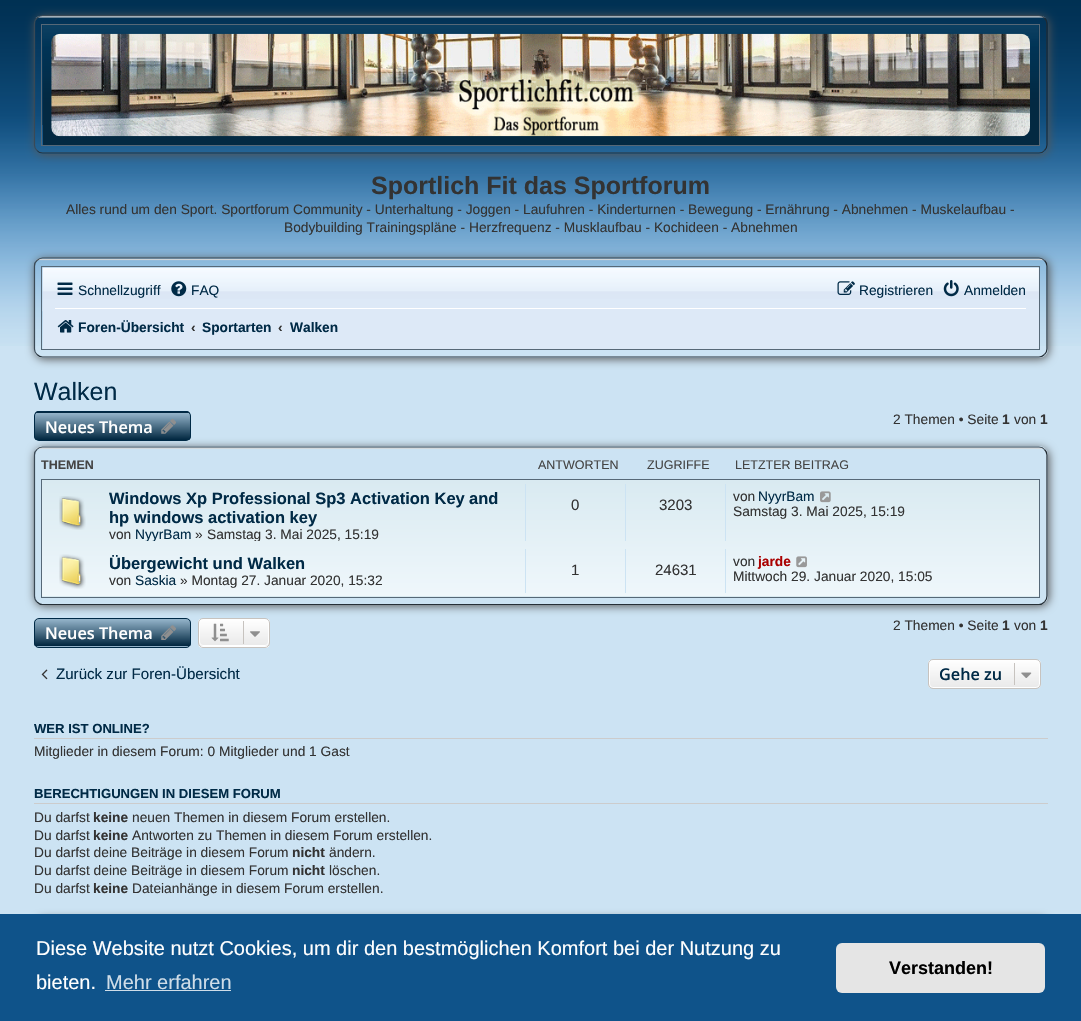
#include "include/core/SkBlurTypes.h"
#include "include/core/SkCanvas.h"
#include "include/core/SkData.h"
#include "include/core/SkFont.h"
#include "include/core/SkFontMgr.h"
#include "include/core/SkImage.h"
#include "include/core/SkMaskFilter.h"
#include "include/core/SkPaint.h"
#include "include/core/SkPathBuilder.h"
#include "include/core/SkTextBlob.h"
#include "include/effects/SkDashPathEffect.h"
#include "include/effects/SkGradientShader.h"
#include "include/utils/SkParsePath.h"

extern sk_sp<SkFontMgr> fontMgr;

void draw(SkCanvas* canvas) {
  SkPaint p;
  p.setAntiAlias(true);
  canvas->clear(SkColorSetRGB(204, 227, 243));
  canvas->drawImageRect(SkImages::DeferredFromEncodedData(SkData::MakeFromFileName("images/1.png")), SkRect::MakeLTRB(0, 0, 1081, 346), SkSamplingOptions());
  canvas->save();
  canvas->clipPath(SkPathBuilder(SkPathFillType::kEvenOdd).moveTo(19, 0).lineTo(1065, 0).lineTo(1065, 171).lineTo(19, 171).close().moveTo(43, 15).lineTo(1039, 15).cubicTo(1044, 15, 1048, 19, 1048, 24).lineTo(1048, 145).cubicTo(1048, 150, 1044, 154, 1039, 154).lineTo(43, 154).cubicTo(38, 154, 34, 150, 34, 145).lineTo(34, 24).cubicTo(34, 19, 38, 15, 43, 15).close().detach(), true);
  p.setColor(SkColorSetRGB(85, 85, 85));
  p.setMaskFilter(SkMaskFilter::MakeBlur(kNormal_SkBlurStyle, 5));
  canvas->drawRoundRect(SkRect::MakeLTRB(35, 16, 1049, 155), 9, 9, p);
  p.setMaskFilter(nullptr);
  canvas->restore();
  canvas->drawImageRect(SkImages::DeferredFromEncodedData(SkData::MakeFromFileName("images/2.png")), SkRect::MakeLTRB(35, 16, 1046, 18), SkSamplingOptions());
  p.setStyle(SkPaint::kStroke_Style);
  p.setStrokeWidth(1.2f);
  p.setColor(SkColorSetRGB(57, 72, 84));
  canvas->drawPath(SkPathBuilder().moveTo(37, 18).cubicTo(38.5f, 16.5f, 40.5f, 15.5f, 42.5f, 15.5f).lineTo(1039, 15.5f).cubicTo(1041, 15.5f, 1043, 16.5f, 1044.5f, 18).detach(), p);
  p.setColor(SkColorSetRGB(33, 41, 48));
  canvas->drawPath(SkPathBuilder().moveTo(1044.5f, 18).cubicTo(1046, 19.5f, 1047, 21.5f, 1047, 24).lineTo(1047, 145).cubicTo(1047, 147, 1046, 149, 1044.5f, 150.5f).detach(), p);
  p.setColor(SkColorSetRGB(38, 48, 56));
  canvas->drawPath(SkPathBuilder().moveTo(1044.5f, 150.5f).cubicTo(1043, 152.5f, 1041, 153, 1039, 153).lineTo(42.5f, 153).cubicTo(40.5f, 153, 38.5f, 152.5f, 37, 150.5f).detach(), p);
  p.setColor(SkColorSetRGB(58, 73, 85));
  canvas->drawPath(SkPathBuilder().moveTo(37, 150.5f).cubicTo(35, 149, 34.5f, 147, 34.5f, 145).lineTo(34.5f, 24).cubicTo(34.5f, 21.5f, 35, 19.5f, 37, 18).detach(), p);
  p.setStrokeWidth(1);
  p.setColor(SkColorSetRGB(86, 104, 119));
  canvas->drawRect(SkRect::MakeLTRB(41.5f, 24.5f, 1039.5f, 145.5f), p);
  p.setStyle(SkPaint::kFill_Style);
  p.setColor(SkColorSetRGB(3, 41, 66));
  canvas->drawRect(SkRect::MakeLTRB(43, 25, 1039, 145), p);
  canvas->drawImageRect(SkImages::DeferredFromEncodedData(SkData::MakeFromFileName("images/3.png")), SkRect::MakeLTRB(42, 25, 1039, 125), SkSamplingOptions());
  canvas->drawImageRect(SkImages::DeferredFromEncodedData(SkData::MakeFromFileName("images/4.png")), SkRect::MakeLTRB(51, 33, 1030, 137), SkSamplingOptions());
  canvas->save();
  canvas->clipPath(SkPathBuilder(SkPathFillType::kEvenOdd).moveTo(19, 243).lineTo(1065, 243).lineTo(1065, 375).lineTo(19, 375).close().moveTo(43, 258).lineTo(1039, 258).cubicTo(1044, 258, 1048, 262, 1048, 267).lineTo(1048, 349).cubicTo(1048, 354, 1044, 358, 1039, 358).lineTo(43, 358).cubicTo(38, 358, 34, 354, 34, 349).lineTo(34, 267).cubicTo(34, 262, 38, 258, 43, 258).close().detach(), true);
  p.setColor(SkColorSetRGB(85, 85, 85));
  p.setMaskFilter(SkMaskFilter::MakeBlur(kNormal_SkBlurStyle, 5));
  canvas->drawRoundRect(SkRect::MakeLTRB(35, 259, 1049, 359), 9, 9, p);
  p.setMaskFilter(nullptr);
  canvas->restore();
  canvas->drawImageRect(SkImages::DeferredFromEncodedData(SkData::MakeFromFileName("images/5.png")), SkRect::MakeLTRB(36, 258, 1045, 261), SkSamplingOptions());
  p.setStyle(SkPaint::kStroke_Style);
  p.setStrokeWidth(1.2f);
  p.setColor(SkColorSetRGB(57, 72, 84));
  canvas->drawPath(SkPathBuilder().moveTo(37, 260.5f).cubicTo(38.5f, 259, 40.5f, 258, 42.5f, 258).lineTo(1039, 258).cubicTo(1041, 258, 1043, 259, 1044.5f, 260.5f).detach(), p);
  p.setColor(SkColorSetRGB(33, 41, 48));
  canvas->drawPath(SkPathBuilder().moveTo(1044.5f, 260.5f).cubicTo(1046, 262, 1047, 264, 1047, 266).lineTo(1047, 349).cubicTo(1047, 351, 1046, 353, 1044.5f, 354.5f).detach(), p);
  p.setColor(SkColorSetRGB(38, 48, 56));
  canvas->drawPath(SkPathBuilder().moveTo(1044.5f, 354.5f).cubicTo(1043, 356, 1041, 357, 1039, 357).lineTo(42.5f, 357).cubicTo(40.5f, 357, 38.5f, 356, 37, 354.5f).detach(), p);
  p.setColor(SkColorSetRGB(58, 73, 85));
  canvas->drawPath(SkPathBuilder().moveTo(37, 354.5f).cubicTo(35, 353, 34.5f, 351, 34.5f, 349).lineTo(34.5f, 266).cubicTo(34.5f, 264, 35, 262, 37, 260.5f).detach(), p);
  p.setStrokeWidth(1);
  p.setColor(SkColorSetRGB(86, 104, 119));
  canvas->drawRect(SkRect::MakeLTRB(41.5f, 266.5f, 1039.5f, 349.5f), p);
  p.setStyle(SkPaint::kFill_Style);
  p.setColor(SkColorSetRGB(221, 233, 247));
  canvas->drawRect(SkRect::MakeLTRB(43, 268, 1039, 349), p);
  canvas->drawImageRect(SkImages::DeferredFromEncodedData(SkData::MakeFromFileName("images/6.png")), SkRect::MakeLTRB(42, 267, 1039, 312), SkSamplingOptions());
  canvas->drawImageRect(SkImages::DeferredFromEncodedData(SkData::MakeFromFileName("images/7.png")), SkRect::MakeLTRB(57, 282, 73, 295), SkSamplingOptions());
  canvas->drawImageRect(SkImages::DeferredFromEncodedData(SkData::MakeFromFileName("images/8.png")), SkRect::MakeLTRB(171, 281, 187, 297), SkSamplingOptions());
  canvas->drawImageRect(SkImages::DeferredFromEncodedData(SkData::MakeFromFileName("images/9.png")), SkRect::MakeLTRB(837, 281, 855, 295), SkSamplingOptions());
  canvas->drawImageRect(SkImages::DeferredFromEncodedData(SkData::MakeFromFileName("images/10.png")), SkRect::MakeLTRB(943, 280, 959, 297), SkSamplingOptions());
  p.setColor(SK_ColorWHITE);
  canvas->drawRect(SkRect::MakeLTRB(55, 308, 1026, 309), p);
  canvas->drawImageRect(SkImages::DeferredFromEncodedData(SkData::MakeFromFileName("images/11.png")), SkRect::MakeLTRB(57, 320, 74, 333), SkSamplingOptions());
  canvas->save();
  canvas->clipPath(SkPathBuilder().moveTo(39, 411).lineTo(186, 411).cubicTo(189, 411, 191, 413, 191, 416).lineTo(191, 436).cubicTo(191, 439, 189, 441, 186, 441).lineTo(39, 441).cubicTo(36, 441, 34, 439, 34, 436).lineTo(34, 416).cubicTo(34, 413, 36, 411, 39, 411).close().detach(), true);
  {
    const SkColor colors[] = {SkColorSetRGB(149, 181, 203), SkColorSetRGB(0, 38, 63)};
    const float stops[] = {0, 1};
    const SkPoint ends[] = {{113, 385}, {113, 413}};
    p.setShader(SkGradientShader::MakeLinear(ends, colors, stops, 2, SkTileMode::kClamp));
    p.setAlpha(255);
  }
  canvas->drawRect(SkRect::MakeLTRB(34, 411, 191, 413), p);
  canvas->restore();
  canvas->save();
  canvas->clipPath(SkPathBuilder(SkPathFillType::kEvenOdd).moveTo(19, 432).lineTo(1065, 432).lineTo(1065, 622).lineTo(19, 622).close().moveTo(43, 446).lineTo(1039, 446).cubicTo(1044, 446, 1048, 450, 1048, 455).lineTo(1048, 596).cubicTo(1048, 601, 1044, 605, 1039, 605).lineTo(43, 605).cubicTo(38, 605, 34, 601, 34, 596).lineTo(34, 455).cubicTo(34, 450, 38, 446, 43, 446).close().detach(), true);
  p.setShader(nullptr);
  p.setColor(SkColorSetRGB(85, 85, 85));
  p.setMaskFilter(SkMaskFilter::MakeBlur(kNormal_SkBlurStyle, 5));
  canvas->drawRoundRect(SkRect::MakeLTRB(35, 448, 1049, 606), 9, 9, p);
  p.setMaskFilter(nullptr);
  canvas->restore();
  canvas->save();
  canvas->clipPath(SkPathBuilder().moveTo(39, 411).lineTo(186, 411).cubicTo(189, 411, 191, 413, 191, 416).lineTo(191, 436).cubicTo(191, 439, 189, 441, 186, 441).lineTo(39, 441).cubicTo(36, 441, 34, 439, 34, 436).lineTo(34, 416).cubicTo(34, 413, 36, 411, 39, 411).close().detach(), true);
  {
    const SkColor colors[] = {SkColorSetRGB(149, 181, 203), SkColorSetRGB(0, 38, 63)};
    const float stops[] = {0, 1};
    const SkPoint ends[] = {{113, 413}, {113, 440}};
    p.setShader(SkGradientShader::MakeLinear(ends, colors, stops, 2, SkTileMode::kClamp));
    p.setAlpha(255);
  }
  canvas->drawRect(SkRect::MakeLTRB(34, 413, 191, 440), p);
  canvas->restore();
  p.setStyle(SkPaint::kStroke_Style);
  p.setShader(nullptr);
  p.setColor(SkColorSetRGB(0, 42, 70));
  canvas->drawRoundRect(SkRect::MakeLTRB(34.5f, 411.5f, 190.5f, 440.5f), 4.5f, 4.5f, p);
  canvas->drawImageRect(SkImages::DeferredFromEncodedData(SkData::MakeFromFileName("images/12.png")), SkRect::MakeLTRB(161, 419, 176, 434), SkSamplingOptions());
  canvas->drawImageRect(SkImages::DeferredFromEncodedData(SkData::MakeFromFileName("images/13.png")), SkRect::MakeLTRB(36, 447, 1045, 449), SkSamplingOptions());
  p.setStrokeWidth(1.2f);
  p.setColor(SkColorSetRGB(57, 72, 84));
  canvas->drawPath(SkPathBuilder().moveTo(37, 449.5f).cubicTo(38.5f, 447.5f, 40.5f, 447, 42.5f, 447).lineTo(1039, 447).cubicTo(1041, 447, 1043, 447.5f, 1044.5f, 449.5f).detach(), p);
  p.setColor(SkColorSetRGB(33, 41, 48));
  canvas->drawPath(SkPathBuilder().moveTo(1044.5f, 449.5f).cubicTo(1046, 451, 1047, 453, 1047, 455).lineTo(1047, 596).cubicTo(1047, 598.5f, 1046, 600.5f, 1044.5f, 602).detach(), p);
  p.setColor(SkColorSetRGB(38, 48, 56));
  canvas->drawPath(SkPathBuilder().moveTo(1044.5f, 602).cubicTo(1043, 603.5f, 1041, 604.5f, 1039, 604.5f).lineTo(42.5f, 604.5f).cubicTo(40.5f, 604.5f, 38.5f, 603.5f, 37, 602).detach(), p);
  p.setColor(SkColorSetRGB(58, 73, 85));
  canvas->drawPath(SkPathBuilder().moveTo(37, 602).cubicTo(35, 600.5f, 34.5f, 598.5f, 34.5f, 596).lineTo(34.5f, 455).cubicTo(34.5f, 453, 35, 451, 37, 449.5f).detach(), p);
  p.setStyle(SkPaint::kFill_Style);
  {
    const SkColor colors[] = {SkColorSetRGB(217, 234, 241), SkColorSetRGB(239, 247, 251)};
    const float stops[] = {0, 1};
    const SkPoint ends[] = {{541, 480}, {541, 596}};
    p.setShader(SkGradientShader::MakeLinear(ends, colors, stops, 2, SkTileMode::kClamp));
    p.setAlpha(255);
  }
  canvas->drawRect(SkRect::MakeLTRB(42, 480, 1039, 596), p);
  {
    const SkColor colors[] = {SkColorSetRGB(217, 234, 241), SkColorSetRGB(239, 247, 251)};
    const float stops[] = {0, 1};
    const SkPoint ends[] = {{541, 596}, {541, 713}};
    p.setShader(SkGradientShader::MakeLinear(ends, colors, stops, 2, SkTileMode::kClamp));
    p.setAlpha(255);
  }
  canvas->drawRect(SkRect::MakeLTRB(41, 596, 1040, 597), p);
  p.setStyle(SkPaint::kStroke_Style);
  p.setStrokeWidth(1);
  p.setShader(nullptr);
  p.setColor(SkColorSetRGB(86, 104, 119));
  canvas->drawRect(SkRect::MakeLTRB(41.5f, 479.5f, 1039.5f, 597.5f), p);
  canvas->drawImageRect(SkImages::DeferredFromEncodedData(SkData::MakeFromFileName("images/14.png")), SkRect::MakeLTRB(59, 496, 86, 530), SkSamplingOptions());
  p.setStyle(SkPaint::kFill_Style);
  p.setColor(SkColorSetRGB(204, 227, 243));
  canvas->drawRect(SkRect::MakeLTRB(525, 484, 526, 541), p);
  canvas->drawRect(SkRect::MakeLTRB(625, 484, 626, 541), p);
  canvas->drawRect(SkRect::MakeLTRB(725, 484, 726, 541), p);
  canvas->drawImageRect(SkImages::DeferredFromEncodedData(SkData::MakeFromFileName("images/15.png")), SkRect::MakeLTRB(820, 491, 831, 503), SkSamplingOptions());
  canvas->drawImageRect(SkImages::DeferredFromEncodedData(SkData::MakeFromFileName("images/16.png")), SkRect::MakeLTRB(59, 554, 86, 589), SkSamplingOptions());
  canvas->drawRect(SkRect::MakeLTRB(525, 549, 526, 593), p);
  canvas->drawRect(SkRect::MakeLTRB(625, 549, 626, 593), p);
  canvas->drawRect(SkRect::MakeLTRB(725, 549, 726, 593), p);
  canvas->drawImageRect(SkImages::DeferredFromEncodedData(SkData::MakeFromFileName("images/17.png")), SkRect::MakeLTRB(796, 556, 807, 568), SkSamplingOptions());
  canvas->save();
  canvas->clipPath(SkPathBuilder().moveTo(39, 618).lineTo(186, 618).cubicTo(189, 618, 191, 620, 191, 623).lineTo(191, 643).cubicTo(191, 646, 189, 648, 186, 648).lineTo(39, 648).cubicTo(36, 648, 34, 646, 34, 643).lineTo(34, 623).cubicTo(34, 620, 36, 618, 39, 618).close().detach(), true);
  {
    const SkColor colors[] = {SkColorSetRGB(149, 181, 203), SkColorSetRGB(0, 38, 63)};
    const float stops[] = {0, 1};
    const SkPoint ends[] = {{113, 619}, {113, 646}};
    p.setShader(SkGradientShader::MakeLinear(ends, colors, stops, 2, SkTileMode::kClamp));
    p.setAlpha(255);
  }
  canvas->drawRect(SkRect::MakeLTRB(34, 619, 191, 646), p);
  {
    const SkColor colors[] = {SkColorSetRGB(149, 181, 203), SkColorSetRGB(0, 38, 63)};
    const float stops[] = {0, 1};
    const SkPoint ends[] = {{113, 646}, {113, 674}};
    p.setShader(SkGradientShader::MakeLinear(ends, colors, stops, 2, SkTileMode::kClamp));
    p.setAlpha(255);
  }
  canvas->drawRect(SkRect::MakeLTRB(34, 646, 191, 648), p);
  canvas->restore();
  p.setStyle(SkPaint::kStroke_Style);
  p.setShader(nullptr);
  p.setColor(SkColorSetRGB(0, 42, 70));
  canvas->drawRoundRect(SkRect::MakeLTRB(34.5f, 618.5f, 190.5f, 647.5f), 4.5f, 4.5f, p);
  canvas->drawImageRect(SkImages::DeferredFromEncodedData(SkData::MakeFromFileName("images/18.png")), SkRect::MakeLTRB(161, 625, 176, 640), SkSamplingOptions());
  canvas->save();
  canvas->clipPath(SkPathBuilder().moveTo(203, 618).lineTo(265, 618).cubicTo(268, 618, 270, 620, 270, 623).lineTo(270, 643).cubicTo(270, 646, 268, 648, 265, 648).lineTo(203, 648).cubicTo(200, 648, 198, 646, 198, 643).lineTo(198, 623).cubicTo(198, 620, 200, 618, 203, 618).close().detach(), true);
  p.setStyle(SkPaint::kFill_Style);
  {
    const SkColor colors[] = {SK_ColorWHITE, SkColorSetRGB(233, 233, 233)};
    const float stops[] = {0, 1};
    const SkPoint ends[] = {{234, 619}, {234, 646}};
    p.setShader(SkGradientShader::MakeLinear(ends, colors, stops, 2, SkTileMode::kClamp));
    p.setAlpha(255);
  }
  canvas->drawRect(SkRect::MakeLTRB(198, 619, 270, 646), p);
  {
    const SkColor colors[] = {SK_ColorWHITE, SkColorSetRGB(233, 233, 233)};
    const float stops[] = {0, 1};
    const SkPoint ends[] = {{234, 646}, {234, 674}};
    p.setShader(SkGradientShader::MakeLinear(ends, colors, stops, 2, SkTileMode::kClamp));
    p.setAlpha(255);
  }
  canvas->drawRect(SkRect::MakeLTRB(198, 646, 270, 648), p);
  canvas->restore();
  p.setStyle(SkPaint::kStroke_Style);
  p.setShader(nullptr);
  p.setColor(SK_ColorWHITE);
  canvas->drawRoundRect(SkRect::MakeLTRB(199.5f, 619.5f, 268.5f, 645.5f), 3.5f, 3.5f, p);
  p.setColor(SkColorSetRGB(199, 195, 191));
  canvas->drawRoundRect(SkRect::MakeLTRB(198.5f, 618.5f, 269.5f, 647.5f), 4.5f, 4.5f, p);
  canvas->drawImageRect(SkImages::DeferredFromEncodedData(SkData::MakeFromFileName("images/19.png")), SkRect::MakeLTRB(211, 623, 229, 642), SkSamplingOptions());
  p.setStyle(SkPaint::kFill_Style);
  canvas->drawRect(SkRect::MakeLTRB(243, 621, 244, 644), p);
  canvas->drawImageRect(SkImages::DeferredFromEncodedData(SkData::MakeFromFileName("images/20.png")), SkRect::MakeLTRB(250, 631, 260, 637), SkSamplingOptions());
  canvas->drawImageRect(SkImages::DeferredFromEncodedData(SkData::MakeFromFileName("images/21.png")), SkRect::MakeLTRB(41, 669, 48, 680), SkSamplingOptions());
  canvas->save();
  canvas->clipPath(SkPathBuilder().moveTo(933, 659).lineTo(1036, 659).cubicTo(1039, 659, 1041, 661, 1041, 664).lineTo(1041, 684).cubicTo(1041, 687, 1039, 689, 1036, 689).lineTo(933, 689).cubicTo(930, 689, 928, 687, 928, 684).lineTo(928, 664).cubicTo(928, 661, 930, 659, 933, 659).close().detach(), true);
  {
    const SkColor colors[] = {SK_ColorWHITE, SkColorSetRGB(233, 233, 233)};
    const float stops[] = {0, 1};
    const SkPoint ends[] = {{984, 660}, {984, 688}};
    p.setShader(SkGradientShader::MakeLinear(ends, colors, stops, 2, SkTileMode::kClamp));
    p.setAlpha(255);
  }
  canvas->drawRect(SkRect::MakeLTRB(928, 660, 1041, 688), p);
  canvas->restore();
  p.setStyle(SkPaint::kStroke_Style);
  p.setShader(nullptr);
  p.setColor(SK_ColorWHITE);
  canvas->drawRoundRect(SkRect::MakeLTRB(929.5f, 660.5f, 1039.5f, 687.5f), 3.5f, 3.5f, p);
  p.setColor(SkColorSetRGB(199, 195, 191));
  canvas->drawRoundRect(SkRect::MakeLTRB(928.5f, 659.5f, 1040.5f, 688.5f), 4.5f, 4.5f, p);
  p.setStyle(SkPaint::kFill_Style);
  canvas->drawRect(SkRect::MakeLTRB(1014, 663, 1015, 685), p);
  canvas->drawImageRect(SkImages::DeferredFromEncodedData(SkData::MakeFromFileName("images/22.png")), SkRect::MakeLTRB(1021, 672, 1032, 678), SkSamplingOptions());
  p.setColor(SkColorSetRGB(204, 204, 204));
  canvas->drawRect(SkRect::MakeLTRB(34, 738, 1048, 739), p);
  canvas->drawRect(SkRect::MakeLTRB(34, 803, 1048, 804), p);
  p.setColor(SkColorSetRGB(85, 85, 85));
  p.setMaskFilter(SkMaskFilter::MakeBlur(kNormal_SkBlurStyle, 5));
  canvas->drawRoundRect(SkRect::MakeLTRB(35, 919, 1049, 983), 9, 9, p);
  p.setMaskFilter(nullptr);
  p.setColor(SkColorSetRGB(15, 83, 138));
  canvas->drawRect(SkRect::MakeLTRB(0, 914, 1081, 1021), p);
  p.setColor(SkColorSetRGB(207, 221, 232));
  canvas->drawRect(SkRect::MakeLTRB(105, 990, 231, 991), p);
  p.setColor(SkColorSetRGB(229, 229, 229));
  canvas->drawRoundRect(SkRect::MakeLTRB(836, 943, 1045, 993), 6, 6, p);
  SkFont font1(fontMgr->matchFamilyStyle("Liberation Sans", SkFontStyle::Bold()), 25);
  font1.setSubpixel(true);
  p.setColor(SkColorSetRGB(51, 51, 51));
  canvas->drawString("Sportlich Fit das Sportforum", 371, 194, font1, p);
  SkFont font2(fontMgr->matchFamilyStyle("Liberation Sans", SkFontStyle::Normal()), 13.75f);
  font2.setSubpixel(true);
  canvas->drawString("Alles rund um den Sport. Sportforum Community - Unterhaltung - Joggen - Laufuhren - Kinderturnen - Bewegung - Ernährung - Abnehmen - Muskelaufbau -", 66, 214, font2, p);
  canvas->drawString("Bodybuilding Trainingspläne - Herzfrequenz - Musklaufbau - Kochideen - Abnehmen", 284, 232, font2, p);
  p.setColor(SkColorSetRGB(0, 42, 70));
  canvas->drawString("Schnellzugriff", 78, 295, font2, p);
  canvas->drawString("FAQ", 191, 295, font2, p);
  canvas->drawString("Registrieren", 859, 295, font2, p);
  canvas->drawString("Anmelden", 964, 295, font2, p);
  SkFont font3(fontMgr->matchFamilyStyle("Liberation Sans", SkFontStyle::Bold()), 13.75f);
  font3.setSubpixel(true);
  canvas->drawString("Foren-Übersicht", 78, 332, font3, p);
  p.setColor(SkColorSetRGB(51, 51, 51));
  canvas->drawString("‹", 191, 332, font3, p);
  p.setColor(SkColorSetRGB(0, 42, 70));
  canvas->drawString("Sportarten", 202, 332, font3, p);
  p.setColor(SkColorSetRGB(51, 51, 51));
  canvas->drawString("‹", 278, 332, font3, p);
  p.setColor(SkColorSetRGB(0, 42, 70));
  canvas->drawString("Walken", 290, 332, font3, p);
  SkFont font4(fontMgr->matchFamilyStyle("Liberation Sans", SkFontStyle::Normal()), 25);
  font4.setSubpixel(true);
  canvas->drawString("Walken", 34, 400, font4, p);
  SkFont font5(fontMgr->matchFamilyStyle("Open Sans", SkFontStyle(600, SkFontStyle::kNormal_Width, SkFontStyle::kUpright_Slant)), 16.25f);
  font5.setSubpixel(true);
  p.setColor(SK_ColorWHITE);
  canvas->drawString("Neues Thema", 45, 433, font5, p);
  p.setColor(SkColorSetRGB(51, 51, 51));
  canvas->drawString("2 Themen • Seite", 893, 424, font2, p);
  canvas->drawString("1", 1002, 424, font3, p);
  canvas->drawString("von", 1014, 424, font2, p);
  canvas->drawString("1", 1040, 424, font3, p);
  SkFont font6(fontMgr->matchFamilyStyle("Liberation Sans", SkFontStyle::Bold()), 12.5f);
  font6.setSubpixel(true);
  p.setColor(SkColorSetRGB(68, 68, 68));
  canvas->drawString("THEMEN", 41, 469, font6, p);
  SkFont font7(fontMgr->matchFamilyStyle("Liberation Sans", SkFontStyle::Normal()), 12.5f);
  font7.setSubpixel(true);
  canvas->drawString("ANTWORTEN", 538, 469, font7, p);
  canvas->drawString("ZUGRIFFE", 647, 469, font7, p);
  canvas->drawString("LETZTER BEITRAG", 735, 469, font7, p);
  SkFont font8(fontMgr->matchFamilyStyle("Liberation Sans", SkFontStyle::Bold()), 16.5f);
  font8.setSubpixel(true);
  p.setColor(SkColorSetRGB(0, 42, 70));
  canvas->drawString("Windows Xp Professional Sp3 Activation Key", 109, 504, font8, p);
  canvas->drawString("and", 469, 504, font8, p);
  canvas->drawString("hp windows activation key", 109, 523, font8, p);
  p.setColor(SkColorSetRGB(51, 51, 51));
  canvas->drawString("von", 109, 539, font2, p);
  canvas->save();
  canvas->clipRect(SkRect::MakeLTRB(44, 484, 1038, 541));
  p.setColor(SkColorSetRGB(0, 42, 70));
  canvas->drawString("NyуrBam", 135, 539, font2, p);
  canvas->restore();
  p.setColor(SkColorSetRGB(51, 51, 51));
  canvas->drawString("»", 195, 539, font2, p);
  canvas->save();
  canvas->clipRect(SkRect::MakeLTRB(44, 484, 1038, 541));
  canvas->drawString("Samstag 3. Mai 2025, 15:19", 207, 539, font2, p);
  canvas->restore();
  SkFont font9(fontMgr->matchFamilyStyle("Liberation Sans", SkFontStyle::Normal()), 15);
  font9.setSubpixel(true);
  canvas->drawString("0", 571, 510, font9, p);
  canvas->drawString("3203", 659, 510, font9, p);
  canvas->drawString("von", 733, 501, font2, p);
  p.setColor(SkColorSetRGB(0, 42, 70));
  canvas->drawString("NyуrBam", 758, 501, font2, p);
  p.setColor(SkColorSetRGB(51, 51, 51));
  canvas->drawString("Samstag 3. Mai 2025, 15:19", 733, 516, font2, p);
  p.setColor(SkColorSetRGB(0, 42, 70));
  canvas->drawString("Übergewicht und Walken", 109, 569, font8, p);
  p.setColor(SkColorSetRGB(51, 51, 51));
  canvas->drawString("von", 109, 585, font2, p);
  p.setColor(SkColorSetRGB(0, 42, 70));
  canvas->drawString("Saskia", 135, 585, font2, p);
  p.setColor(SkColorSetRGB(51, 51, 51));
  canvas->drawString("» Montag 27. Januar 2020, 15:32", 180, 585, font2, p);
  canvas->drawString("1", 571, 575, font9, p);
  canvas->drawString("24631", 655, 575, font9, p);
  canvas->drawString("von", 733, 566, font2, p);
  p.setColor(SkColorSetRGB(170, 0, 0));
  canvas->drawString("jarde", 758, 566, font3, p);
  p.setColor(SkColorSetRGB(51, 51, 51));
  canvas->drawString("Mittwoch 29. Januar 2020, 15:05", 733, 581, font2, p);
  p.setColor(SK_ColorWHITE);
  canvas->drawString("Neues Thema", 45, 639, font5, p);
  p.setColor(SkColorSetRGB(51, 51, 51));
  canvas->drawString("2 Themen • Seite", 893, 630, font2, p);
  canvas->drawString("1", 1002, 630, font3, p);
  canvas->drawString("von", 1014, 630, font2, p);
  canvas->drawString("1", 1040, 630, font3, p);
  SkFont font10(fontMgr->matchFamilyStyle("Liberation Sans", SkFontStyle::Normal()), 15.1f);
  font10.setSubpixel(true);
  p.setColor(SkColorSetRGB(0, 42, 70));
  canvas->drawString("Zurück zur Foren-Übersicht", 56, 679, font10, p);
  canvas->drawString("Gehe zu", 939, 680, font5, p);
  SkFont font11(fontMgr->matchFamilyStyle("Liberation Sans", SkFontStyle::Bold()), 13.1f);
  font11.setSubpixel(true);
  canvas->drawString("WER IST ONLINE?", 34, 733, font11, p);
  p.setColor(SkColorSetRGB(51, 51, 51));
  canvas->drawString("Mitglieder in diesem Forum: 0 Mitglieder und 1 Gast", 34, 756, font2, p);
  p.setColor(SkColorSetRGB(0, 42, 70));
  canvas->drawString("BERECHTIGUNGEN IN DIESEM FORUM", 34, 798, font11, p);
  p.setColor(SkColorSetRGB(51, 51, 51));
  canvas->drawString("Du darfst", 34, 822, font2, p);
  canvas->drawString("keine", 93, 822, font3, p);
  canvas->drawString("neuen Themen in diesem Forum erstellen.", 132, 822, font2, p);
  canvas->drawString("Du darfst", 34, 840, font2, p);
  canvas->drawString("keine", 93, 840, font3, p);
  canvas->drawString("Antworten zu Themen in diesem Forum erstellen.", 132, 840, font2, p);
  canvas->drawString("Du darfst deine Beiträge in diesem Forum", 34, 857, font2, p);
  canvas->drawString("nicht", 292, 857, font3, p);
  canvas->drawString("ändern.", 329, 857, font2, p);
  canvas->drawString("Du darfst deine Beiträge in diesem Forum", 34, 875, font2, p);
  canvas->drawString("nicht", 292, 875, font3, p);
  canvas->drawString("löschen.", 329, 875, font2, p);
  canvas->drawString("Du darfst", 34, 893, font2, p);
  canvas->drawString("keine", 93, 893, font3, p);
  canvas->drawString("Dateianhänge in diesem Forum erstellen.", 132, 893, font2, p);
  SkFont font12(fontMgr->matchFamilyStyle("Liberation Sans", SkFontStyle::Normal()), 20);
  font12.setSubpixel(true);
  p.setColor(SK_ColorWHITE);
  canvas->drawString("Diese Website nutzt Cookies, um dir den bestmöglichen Komfort bei der Nutzung zu", 36, 955, font12, p);
  canvas->drawString("bieten.", 36, 989, font12, p);
  p.setColor(SkColorSetRGB(207, 221, 232));
  canvas->drawString("Mehr erfahren", 106, 989, font12, p);
  SkFont font13(fontMgr->matchFamilyStyle("Liberation Sans", SkFontStyle::Bold()), 18);
  font13.setSubpixel(true);
  p.setColor(SK_ColorBLACK);
  canvas->drawString("Verstanden!", 889, 974, font13, p);
}
